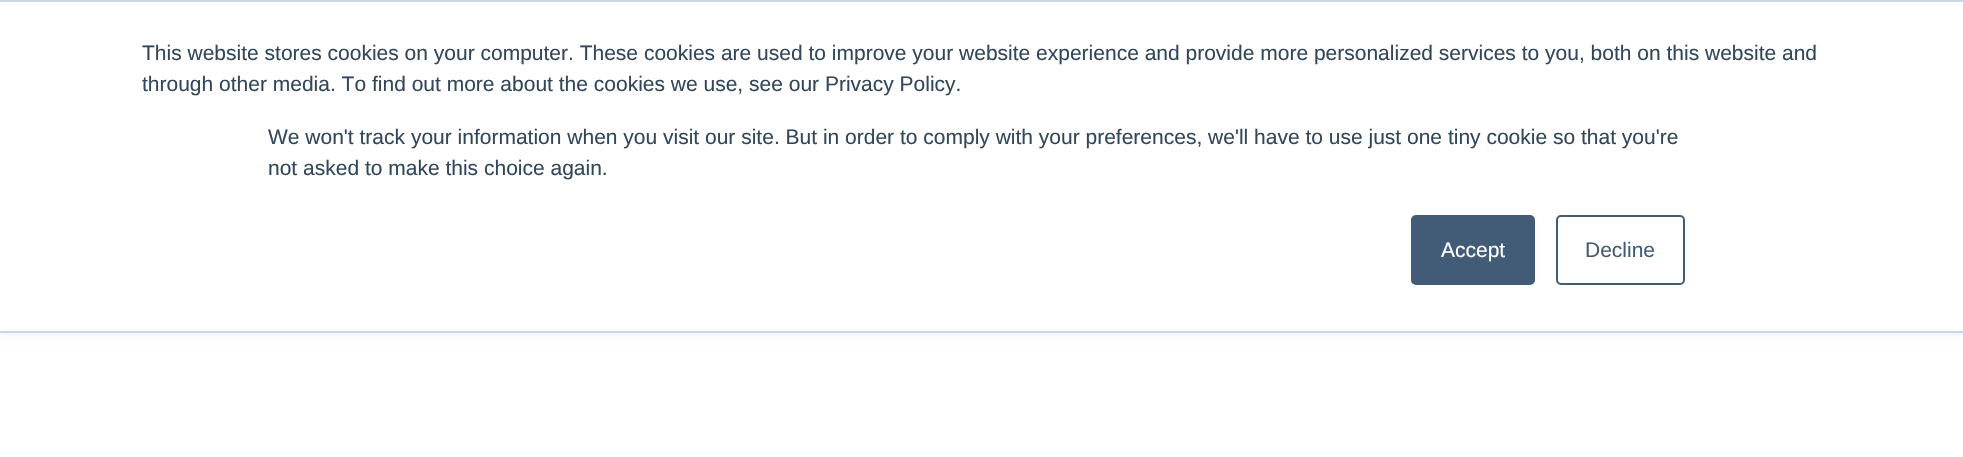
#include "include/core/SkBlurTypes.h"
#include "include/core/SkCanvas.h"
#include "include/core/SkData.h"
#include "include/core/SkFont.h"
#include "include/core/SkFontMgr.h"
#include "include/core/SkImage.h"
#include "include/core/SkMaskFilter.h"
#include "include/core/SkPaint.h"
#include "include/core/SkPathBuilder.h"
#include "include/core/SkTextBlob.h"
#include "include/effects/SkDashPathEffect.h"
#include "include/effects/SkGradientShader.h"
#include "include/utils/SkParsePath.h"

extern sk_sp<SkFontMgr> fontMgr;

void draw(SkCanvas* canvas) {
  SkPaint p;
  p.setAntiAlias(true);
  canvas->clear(SK_ColorWHITE);
  p.setColor(SkColorSetRGB(234, 240, 246));
  p.setMaskFilter(SkMaskFilter::MakeBlur(kNormal_SkBlurStyle, 4.5f));
  canvas->drawRect(SkRect::MakeLTRB(0, 2, 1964, 334), p);
  p.setMaskFilter(nullptr);
  p.setColor(SK_ColorWHITE);
  canvas->drawRect(SkRect::MakeLTRB(0, 2, 1963, 331), p);
  p.setColor(SkColorSetRGB(203, 214, 226));
  canvas->drawRect(SkRect::MakeLTRB(0, 0, 1963, 2), p);
  canvas->drawRect(SkRect::MakeLTRB(0, 331, 1963, 333), p);
  p.setColor(SkColorSetRGB(66, 91, 118));
  canvas->drawRoundRect(SkRect::MakeLTRB(1412, 216, 1534, 284), 4, 4, p);
  p.setStyle(SkPaint::kStroke_Style);
  p.setStrokeWidth(2);
  canvas->drawRoundRect(SkRect::MakeLTRB(1412, 216, 1534, 284), 4, 4, p);
  canvas->drawRoundRect(SkRect::MakeLTRB(1557, 216, 1684, 284), 4, 4, p);
  SkFont font1(fontMgr->matchFamilyStyle("Liberation Sans", SkFontStyle::Normal()), 21);
  font1.setSubpixel(true);
  p.setStyle(SkPaint::kFill_Style);
  p.setColor(SkColorSetRGB(51, 71, 91));
  canvas->drawString("This website stores cookies on your computer. These cookies are used to improve your website experience and provide more personalized services to you, both on this website and", 142, 60, font1, p);
  canvas->drawString("through other media. To find out more about the cookies we use, see our Privacy Policy.", 142, 91, font1, p);
  canvas->drawString("We won't track your information when you visit our site. But in order to comply with your preferences, we'll have to use just one tiny cookie so that you're", 268, 144, font1, p);
  canvas->drawString("not asked to make this choice again.", 268, 175, font1, p);
  p.setColor(SK_ColorWHITE);
  canvas->drawString("Accept", 1441, 257, font1, p);
  p.setColor(SkColorSetRGB(66, 91, 118));
  canvas->drawString("Decline", 1585, 257, font1, p);
}
